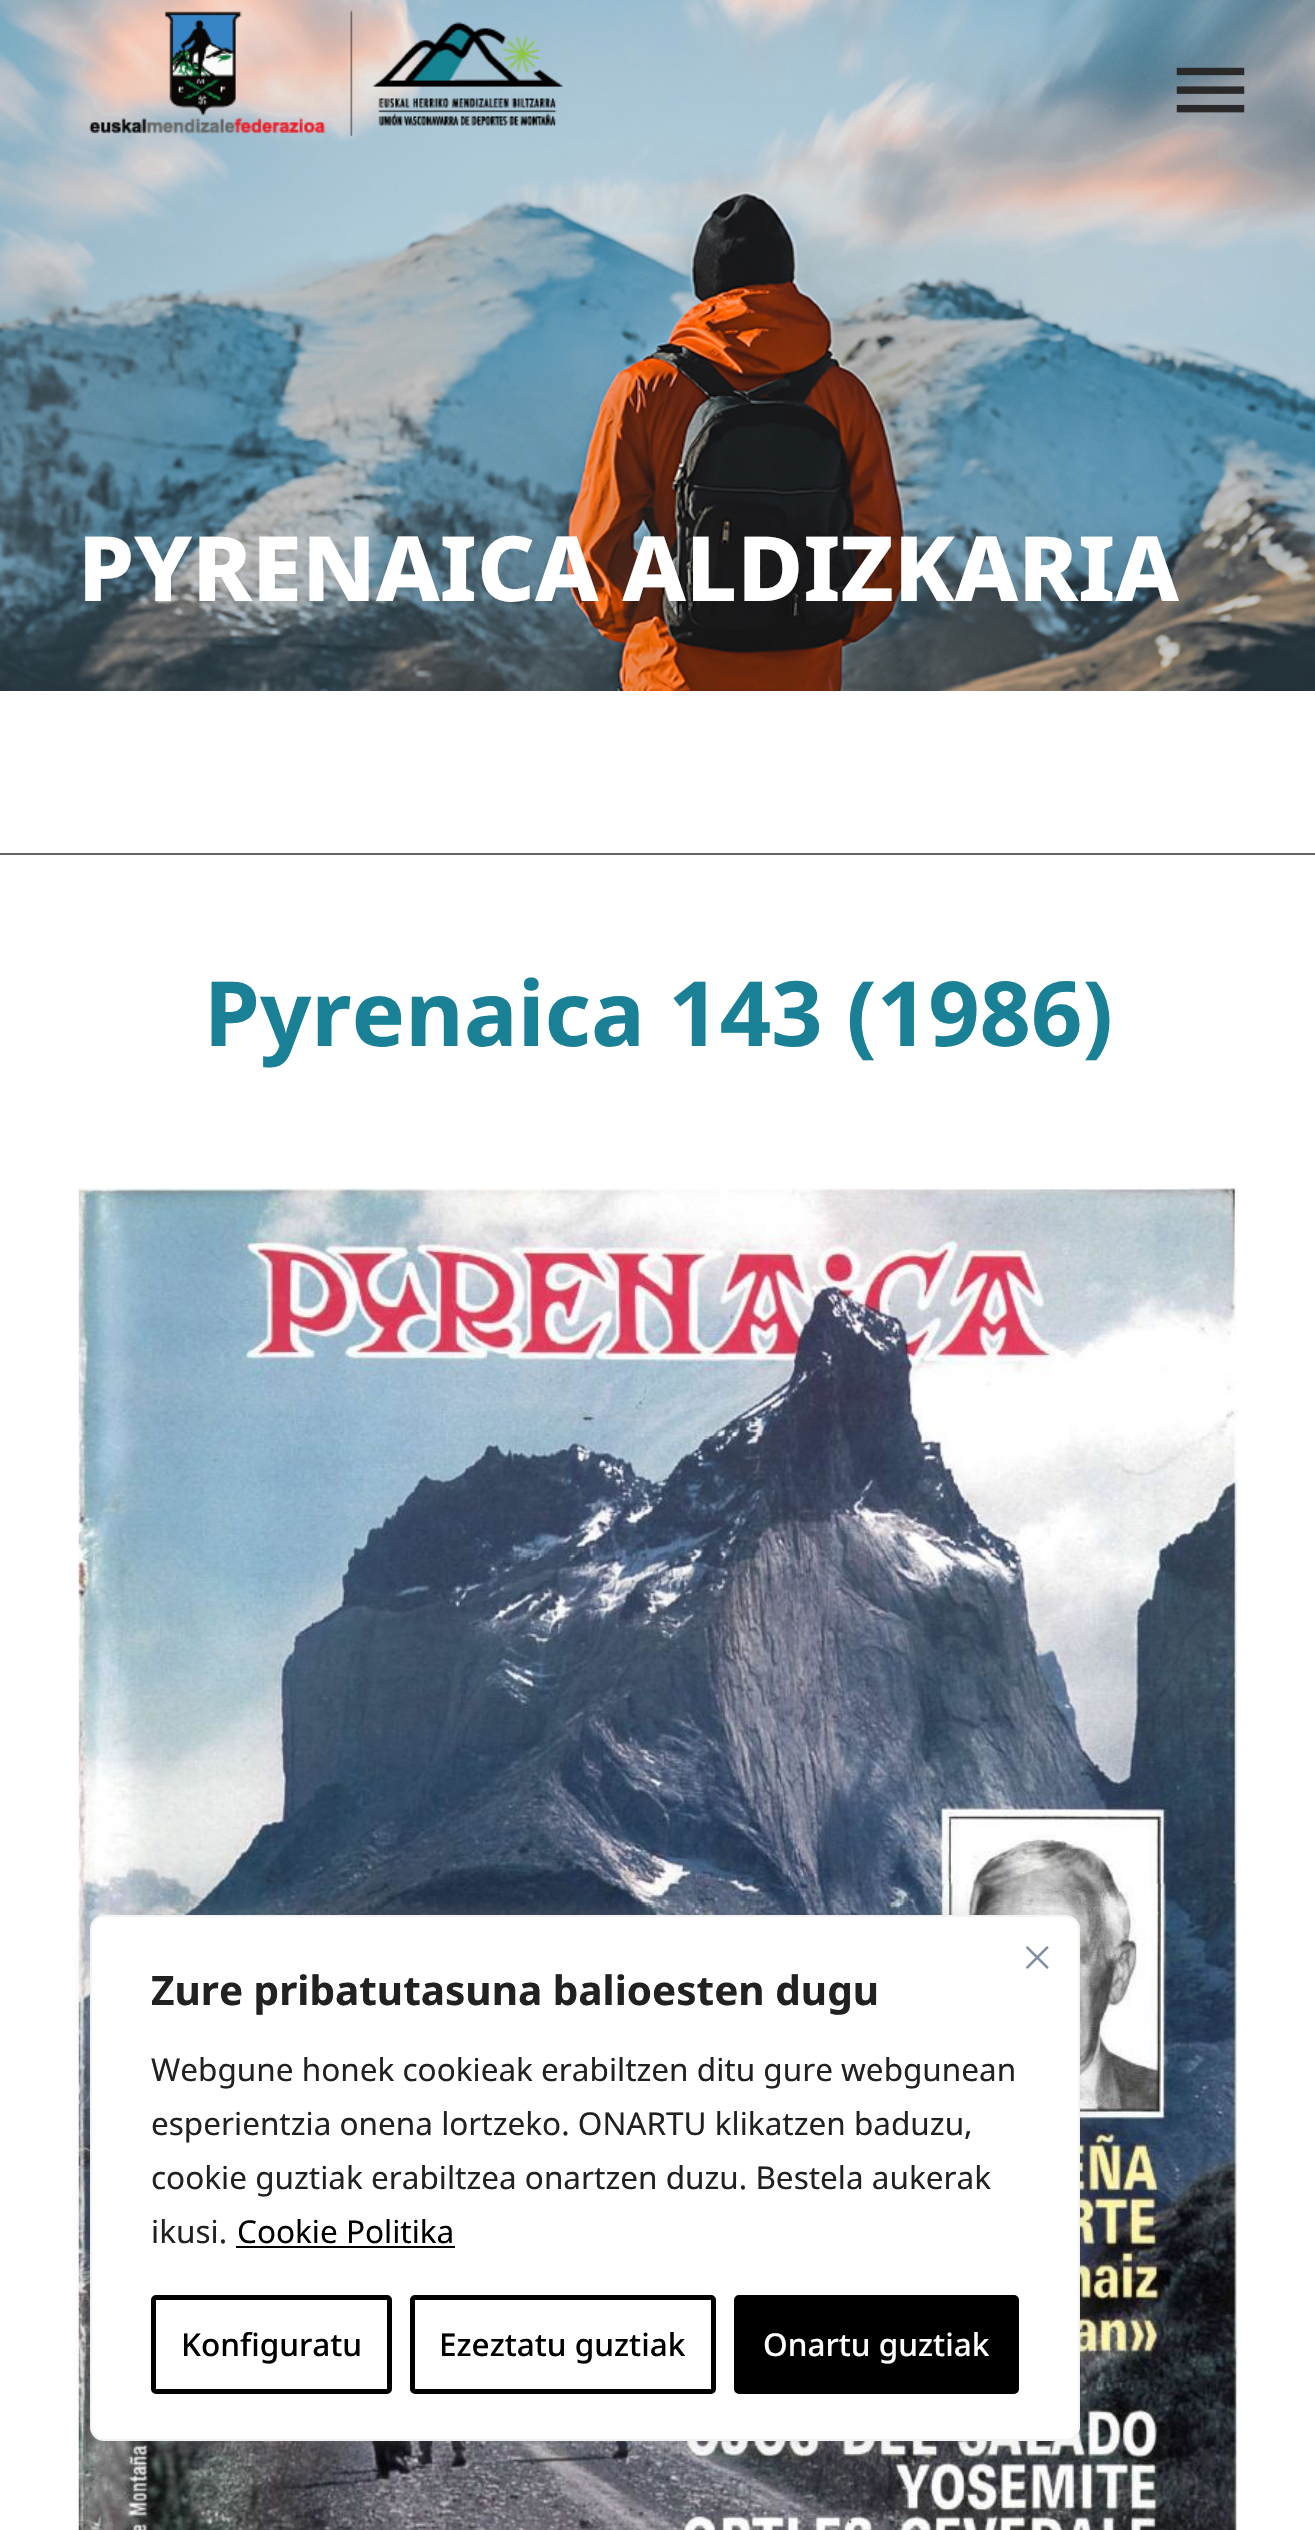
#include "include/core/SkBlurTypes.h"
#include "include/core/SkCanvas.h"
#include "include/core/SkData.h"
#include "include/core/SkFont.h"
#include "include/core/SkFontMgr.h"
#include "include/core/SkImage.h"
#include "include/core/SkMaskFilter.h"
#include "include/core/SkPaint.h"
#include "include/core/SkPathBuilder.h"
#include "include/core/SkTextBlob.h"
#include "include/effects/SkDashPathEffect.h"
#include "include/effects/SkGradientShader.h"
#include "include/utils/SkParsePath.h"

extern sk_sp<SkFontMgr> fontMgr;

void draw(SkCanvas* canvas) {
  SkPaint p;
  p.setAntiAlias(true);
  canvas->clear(SK_ColorWHITE);
  canvas->drawImageRect(SkImages::DeferredFromEncodedData(SkData::MakeFromFileName("images/1.png")), SkRect::MakeLTRB(0, 0, 1315, 691), SkSamplingOptions());
  canvas->drawImageRect(SkImages::DeferredFromEncodedData(SkData::MakeFromFileName("images/2.png")), SkRect::MakeLTRB(89, 10, 563, 137), SkSamplingOptions());
  canvas->drawImageRect(SkImages::DeferredFromEncodedData(SkData::MakeFromFileName("images/3.png")), SkRect::MakeLTRB(1176, 67, 1245, 113), SkSamplingOptions());
  p.setColor(SkColorSetRGB(102, 102, 102));
  canvas->drawRect(SkRect::MakeLTRB(0, 853, 1315, 855), p);
  canvas->drawImageRect(SkImages::DeferredFromEncodedData(SkData::MakeFromFileName("images/4.png")), SkRect::MakeLTRB(78, 1188, 1238, 2530), SkSamplingOptions());
  p.setColor(SkColorSetARGB(77, 172, 171, 171));
  p.setMaskFilter(SkMaskFilter::MakeBlur(kNormal_SkBlurStyle, 11));
  canvas->drawRoundRect(SkRect::MakeLTRB(90, 1913, 1080, 2439), 14, 14, p);
  p.setMaskFilter(nullptr);
  p.setColor(SK_ColorWHITE);
  canvas->drawRoundRect(SkRect::MakeLTRB(91, 1916, 1079, 2440), 13, 13, p);
  p.setStyle(SkPaint::kStroke_Style);
  p.setStrokeWidth(2);
  p.setColor(SkColorSetRGB(244, 244, 244));
  canvas->drawRoundRect(SkRect::MakeLTRB(91, 1916, 1079, 2440), 13, 13, p);
  canvas->drawImageRect(SkImages::DeferredFromEncodedData(SkData::MakeFromFileName("images/5.png")), SkRect::MakeLTRB(1026, 1946, 1049, 1969), SkSamplingOptions());
  p.setStyle(SkPaint::kFill_Style);
  p.setColor(SK_ColorBLACK);
  canvas->drawRect(SkRect::MakeLTRB(236, 2246, 455, 2248), p);
  p.setStyle(SkPaint::kStroke_Style);
  p.setStrokeWidth(5);
  canvas->drawRoundRect(SkRect::MakeLTRB(153.5f, 2297.5f, 389.5f, 2391.5f), 2.5f, 2.5f, p);
  canvas->drawRoundRect(SkRect::MakeLTRB(412.5f, 2297.5f, 713.5f, 2391.5f), 2.5f, 2.5f, p);
  p.setStyle(SkPaint::kFill_Style);
  canvas->drawRoundRect(SkRect::MakeLTRB(736.5f, 2297.5f, 1016.5f, 2391.5f), 2.5f, 2.5f, p);
  p.setStyle(SkPaint::kStroke_Style);
  canvas->drawRoundRect(SkRect::MakeLTRB(736.5f, 2297.5f, 1016.5f, 2391.5f), 2.5f, 2.5f, p);
  SkFont font1(fontMgr->matchFamilyStyle("Noto Sans", SkFontStyle(800, SkFontStyle::kNormal_Width, SkFontStyle::kUpright_Slant)), 90);
  font1.setSubpixel(true);
  p.setStyle(SkPaint::kFill_Style);
  p.setColor(SK_ColorWHITE);
  canvas->drawString("PYRENAICA ALDIZKARIA", 78, 601, font1, p);
  SkFont font2(fontMgr->matchFamilyStyle("Noto Sans", SkFontStyle::Bold()), 90);
  font2.setSubpixel(true);
  p.setColor(SkColorSetRGB(26, 128, 149));
  canvas->drawString("Pyrenaica 143 (1986)", 204, 1046, font2, p);
  SkFont font3(fontMgr->matchFamilyStyle("Noto Sans", SkFontStyle::Bold()), 40.5f);
  font3.setSubpixel(true);
  p.setColor(SkColorSetRGB(33, 33, 33));
  canvas->drawString("Zure pribatutasuna balioesten dugu", 151, 2005, font3, p);
  SkFont font4(fontMgr->matchFamilyStyle("Noto Sans", SkFontStyle::Normal()), 31.5f);
  font4.setSubpixel(true);
  canvas->drawString("Webgune honek cookieak erabiltzen ditu gure webgunean", 151, 2081, font4, p);
  canvas->drawString("esperientzia onena lortzeko. ONARTU klikatzen baduzu,", 151, 2135, font4, p);
  canvas->drawString("cookie guztiak erabiltzea onartzen duzu. Bestela aukerak", 151, 2189, font4, p);
  canvas->drawString("ikusi.", 151, 2243, font4, p);
  p.setColor(SK_ColorBLACK);
  canvas->drawString("Cookie Politika", 237, 2243, font4, p);
  SkFont font5(fontMgr->matchFamilyStyle("Noto Sans", SkFontStyle(500, SkFontStyle::kNormal_Width, SkFontStyle::kUpright_Slant)), 31.5f);
  font5.setSubpixel(true);
  canvas->drawString("Konfiguratu", 181, 2356, font5, p);
  canvas->drawString("Ezeztatu guztiak", 439, 2356, font5, p);
  p.setColor(SK_ColorWHITE);
  canvas->drawString("Onartu guztiak", 763, 2356, font5, p);
}
